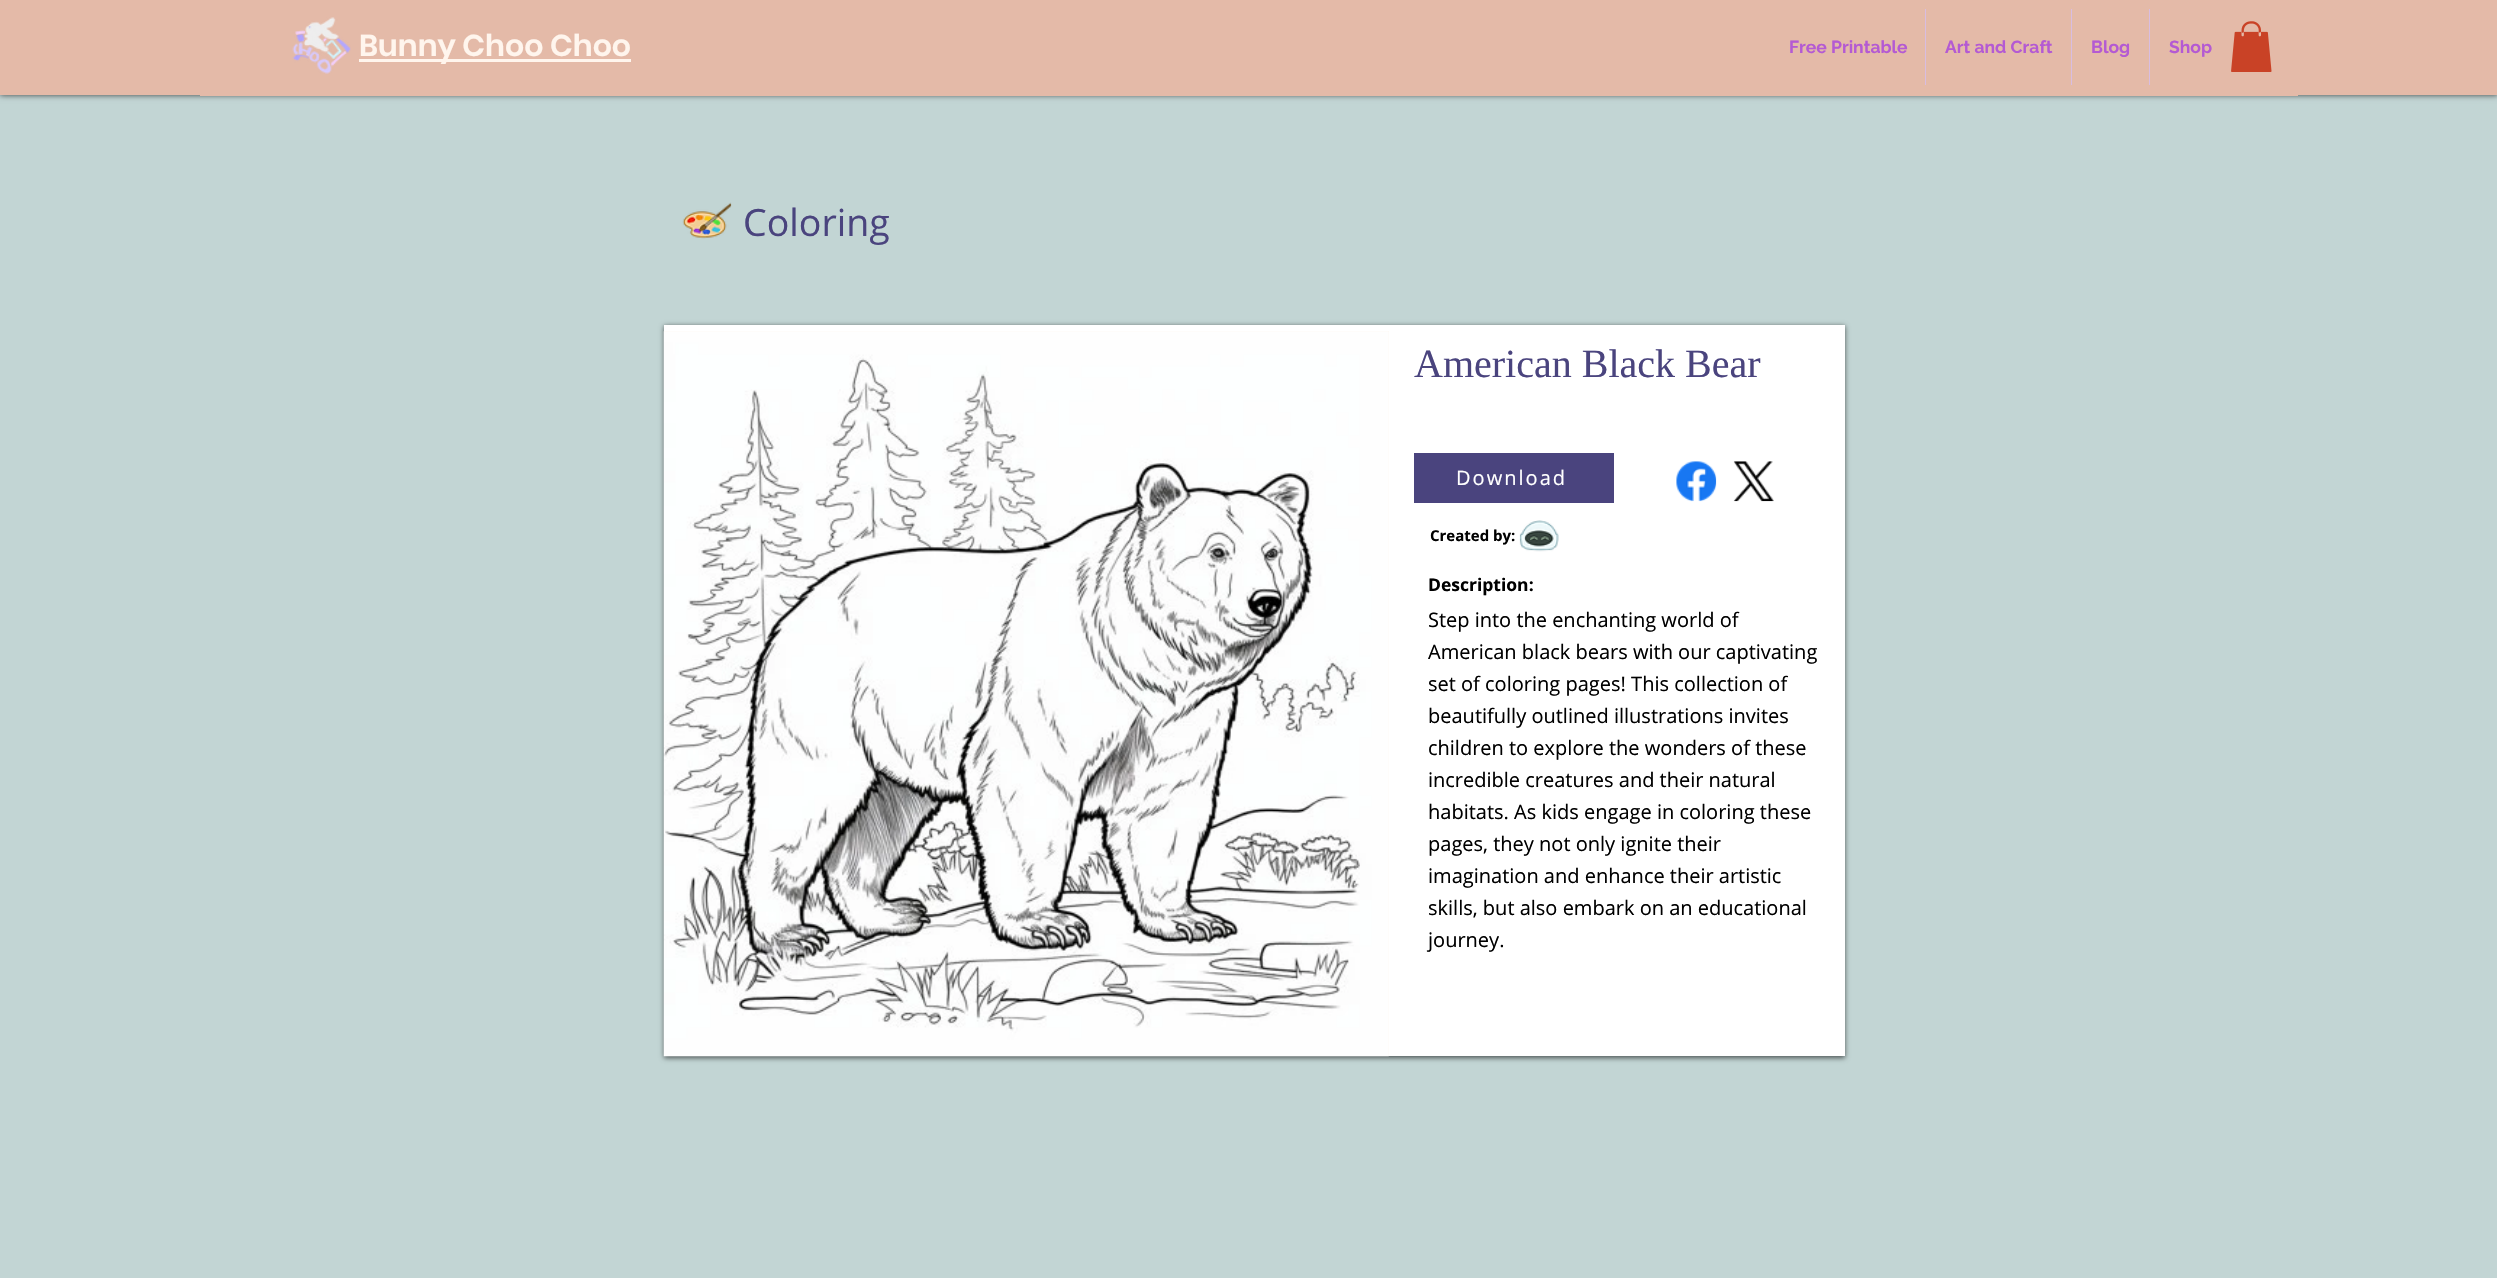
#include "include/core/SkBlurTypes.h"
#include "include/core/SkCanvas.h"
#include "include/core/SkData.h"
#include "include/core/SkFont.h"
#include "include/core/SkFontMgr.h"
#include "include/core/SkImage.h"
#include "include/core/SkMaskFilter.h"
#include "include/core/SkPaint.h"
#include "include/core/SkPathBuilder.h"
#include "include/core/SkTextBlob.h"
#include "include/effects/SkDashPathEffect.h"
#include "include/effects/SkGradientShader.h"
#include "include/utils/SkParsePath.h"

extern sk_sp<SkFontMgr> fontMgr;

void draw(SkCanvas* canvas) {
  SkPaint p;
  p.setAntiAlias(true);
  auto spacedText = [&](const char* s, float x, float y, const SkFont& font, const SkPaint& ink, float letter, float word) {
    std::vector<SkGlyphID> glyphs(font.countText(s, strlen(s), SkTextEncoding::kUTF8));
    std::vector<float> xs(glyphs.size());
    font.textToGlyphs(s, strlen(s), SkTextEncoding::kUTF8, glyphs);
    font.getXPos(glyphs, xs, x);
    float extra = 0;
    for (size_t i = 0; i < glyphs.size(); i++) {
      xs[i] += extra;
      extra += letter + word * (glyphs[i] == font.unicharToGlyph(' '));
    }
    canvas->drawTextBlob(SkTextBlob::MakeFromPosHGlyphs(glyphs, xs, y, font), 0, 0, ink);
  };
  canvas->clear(SkColorSetRGB(194, 213, 212));
  p.setColor(SkColorSetARGB(179, 0, 0, 0));
  p.setMaskFilter(SkMaskFilter::MakeBlur(kNormal_SkBlurStyle, 3));
  canvas->drawRect(SkRect::MakeLTRB(0, 0, 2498, 95), p);
  p.setMaskFilter(nullptr);
  p.setColor(SkColorSetRGB(228, 186, 168));
  canvas->drawRect(SkRect::MakeLTRB(0, 0, 2497, 95), p);
  canvas->drawImageRect(SkImages::DeferredFromEncodedData(SkData::MakeFromFileName("images/1.png")), SkRect::MakeLTRB(292, 17, 351, 74), SkSamplingOptions());
  p.setColor(SkColorSetRGB(255, 245, 237));
  canvas->drawRect(SkRect::MakeLTRB(359, 59, 631, 62), p);
  p.setColor(SkColorSetRGB(228, 186, 168));
  canvas->drawRect(SkRect::MakeLTRB(200, 95, 2298, 96), p);
  p.setColor(SkColorSetRGB(216, 189, 226));
  canvas->drawRect(SkRect::MakeLTRB(1925, 9, 1926, 85), p);
  canvas->drawRect(SkRect::MakeLTRB(2071, 9, 2072, 85), p);
  canvas->drawRect(SkRect::MakeLTRB(2149, 9, 2150, 85), p);
  canvas->drawImageRect(SkImages::DeferredFromEncodedData(SkData::MakeFromFileName("images/2.png")), SkRect::MakeLTRB(2231, 21, 2272, 72), SkSamplingOptions());
  canvas->drawImageRect(SkImages::DeferredFromEncodedData(SkData::MakeFromFileName("images/3.png")), SkRect::MakeLTRB(682, 202, 732, 239), SkSamplingOptions());
  p.setColor(SkColorSetARGB(153, 0, 0, 0));
  p.setMaskFilter(SkMaskFilter::MakeBlur(kNormal_SkBlurStyle, 2.5f));
  canvas->drawRect(SkRect::MakeLTRB(664, 326, 1845, 1058), p);
  p.setMaskFilter(nullptr);
  p.setColor(SK_ColorWHITE);
  canvas->drawRect(SkRect::MakeLTRB(664, 325, 1845, 1056), p);
  p.setColor(SkColorSetRGB(255, 245, 237));
  canvas->drawRect(SkRect::MakeLTRB(664, 331, 1389, 1056), p);
  canvas->drawImageRect(SkImages::DeferredFromEncodedData(SkData::MakeFromFileName("images/4.png")), SkRect::MakeLTRB(663, 331, 1389, 1057), SkSamplingOptions());
  p.setColor(SkColorSetRGB(74, 68, 126));
  canvas->drawRect(SkRect::MakeLTRB(1414, 453, 1614, 503), p);
  canvas->drawImageRect(SkImages::DeferredFromEncodedData(SkData::MakeFromFileName("images/5.png")), SkRect::MakeLTRB(1676, 461, 1717, 502), SkSamplingOptions());
  canvas->drawImageRect(SkImages::DeferredFromEncodedData(SkData::MakeFromFileName("images/6.png")), SkRect::MakeLTRB(1733, 461, 1774, 502), SkSamplingOptions());
  canvas->drawImageRect(SkImages::DeferredFromEncodedData(SkData::MakeFromFileName("images/7.png")), SkRect::MakeLTRB(1519, 520, 1559, 552), SkSamplingOptions());
  SkFont font1(fontMgr->matchFamilyStyle("Poppins", SkFontStyle(600, SkFontStyle::kNormal_Width, SkFontStyle::kUpright_Slant)), 30);
  font1.setSubpixel(true);
  p.setColor(SkColorSetRGB(255, 245, 237));
  canvas->drawString("Bunny Choo Choo", 359, 56, font1, p);
  SkFont font2(fontMgr->matchFamilyStyle("Raleway", SkFontStyle::Bold()), 17.5f);
  font2.setSubpixel(true);
  p.setColor(SkColorSetRGB(180, 90, 211));
  canvas->drawString("Free Printable", 1789, 53, font2, p);
  canvas->drawString("Art and Craft", 1945, 53, font2, p);
  canvas->drawString("Blog", 2091, 53, font2, p);
  canvas->drawString("Shop", 2169, 53, font2, p);
  SkFont font3(fontMgr->matchFamilyStyle("Open Sans", SkFontStyle::Normal()), 37.5f);
  font3.setSubpixel(true);
  p.setColor(SkColorSetRGB(74, 68, 126));
  canvas->drawString("Coloring", 743, 236, font3, p);
  SkFont font4(fontMgr->matchFamilyStyle("Liberation Serif", SkFontStyle::Normal()), 40);
  font4.setSubpixel(true);
  canvas->drawString("American Black Bear", 1414, 377, font4, p);
  SkFont font5(fontMgr->matchFamilyStyle("Open Sans", SkFontStyle::Normal()), 20);
  font5.setSubpixel(true);
  p.setColor(SK_ColorWHITE);
  spacedText("Download", 1456, 485, font5, p, 2, 0);
  SkFont font6(fontMgr->matchFamilyStyle("Open Sans", SkFontStyle::Bold()), 15);
  font6.setSubpixel(true);
  p.setColor(SK_ColorBLACK);
  canvas->drawString("Created by:", 1430, 541, font6, p);
  SkFont font7(fontMgr->matchFamilyStyle("Open Sans", SkFontStyle::Bold()), 17.5f);
  font7.setSubpixel(true);
  canvas->drawString("Description:", 1428, 591, font7, p);
  canvas->drawString("Step into the enchanting world of", 1428, 627, font5, p);
  canvas->drawString("American black bears with our captivating", 1428, 659, font5, p);
  canvas->drawString("set of coloring pages! This collection of", 1428, 691, font5, p);
  canvas->drawString("beautifully outlined illustrations invites", 1428, 723, font5, p);
  canvas->drawString("children to explore the wonders of these", 1428, 755, font5, p);
  canvas->drawString("incredible creatures and their natural", 1428, 787, font5, p);
  canvas->drawString("habitats. As kids engage in coloring these", 1428, 819, font5, p);
  canvas->drawString("pages, they not only ignite their", 1428, 851, font5, p);
  canvas->drawString("imagination and enhance their artistic", 1428, 883, font5, p);
  canvas->drawString("skills, but also embark on an educational", 1428, 915, font5, p);
  canvas->drawString("journey.", 1428, 947, font5, p);
}
